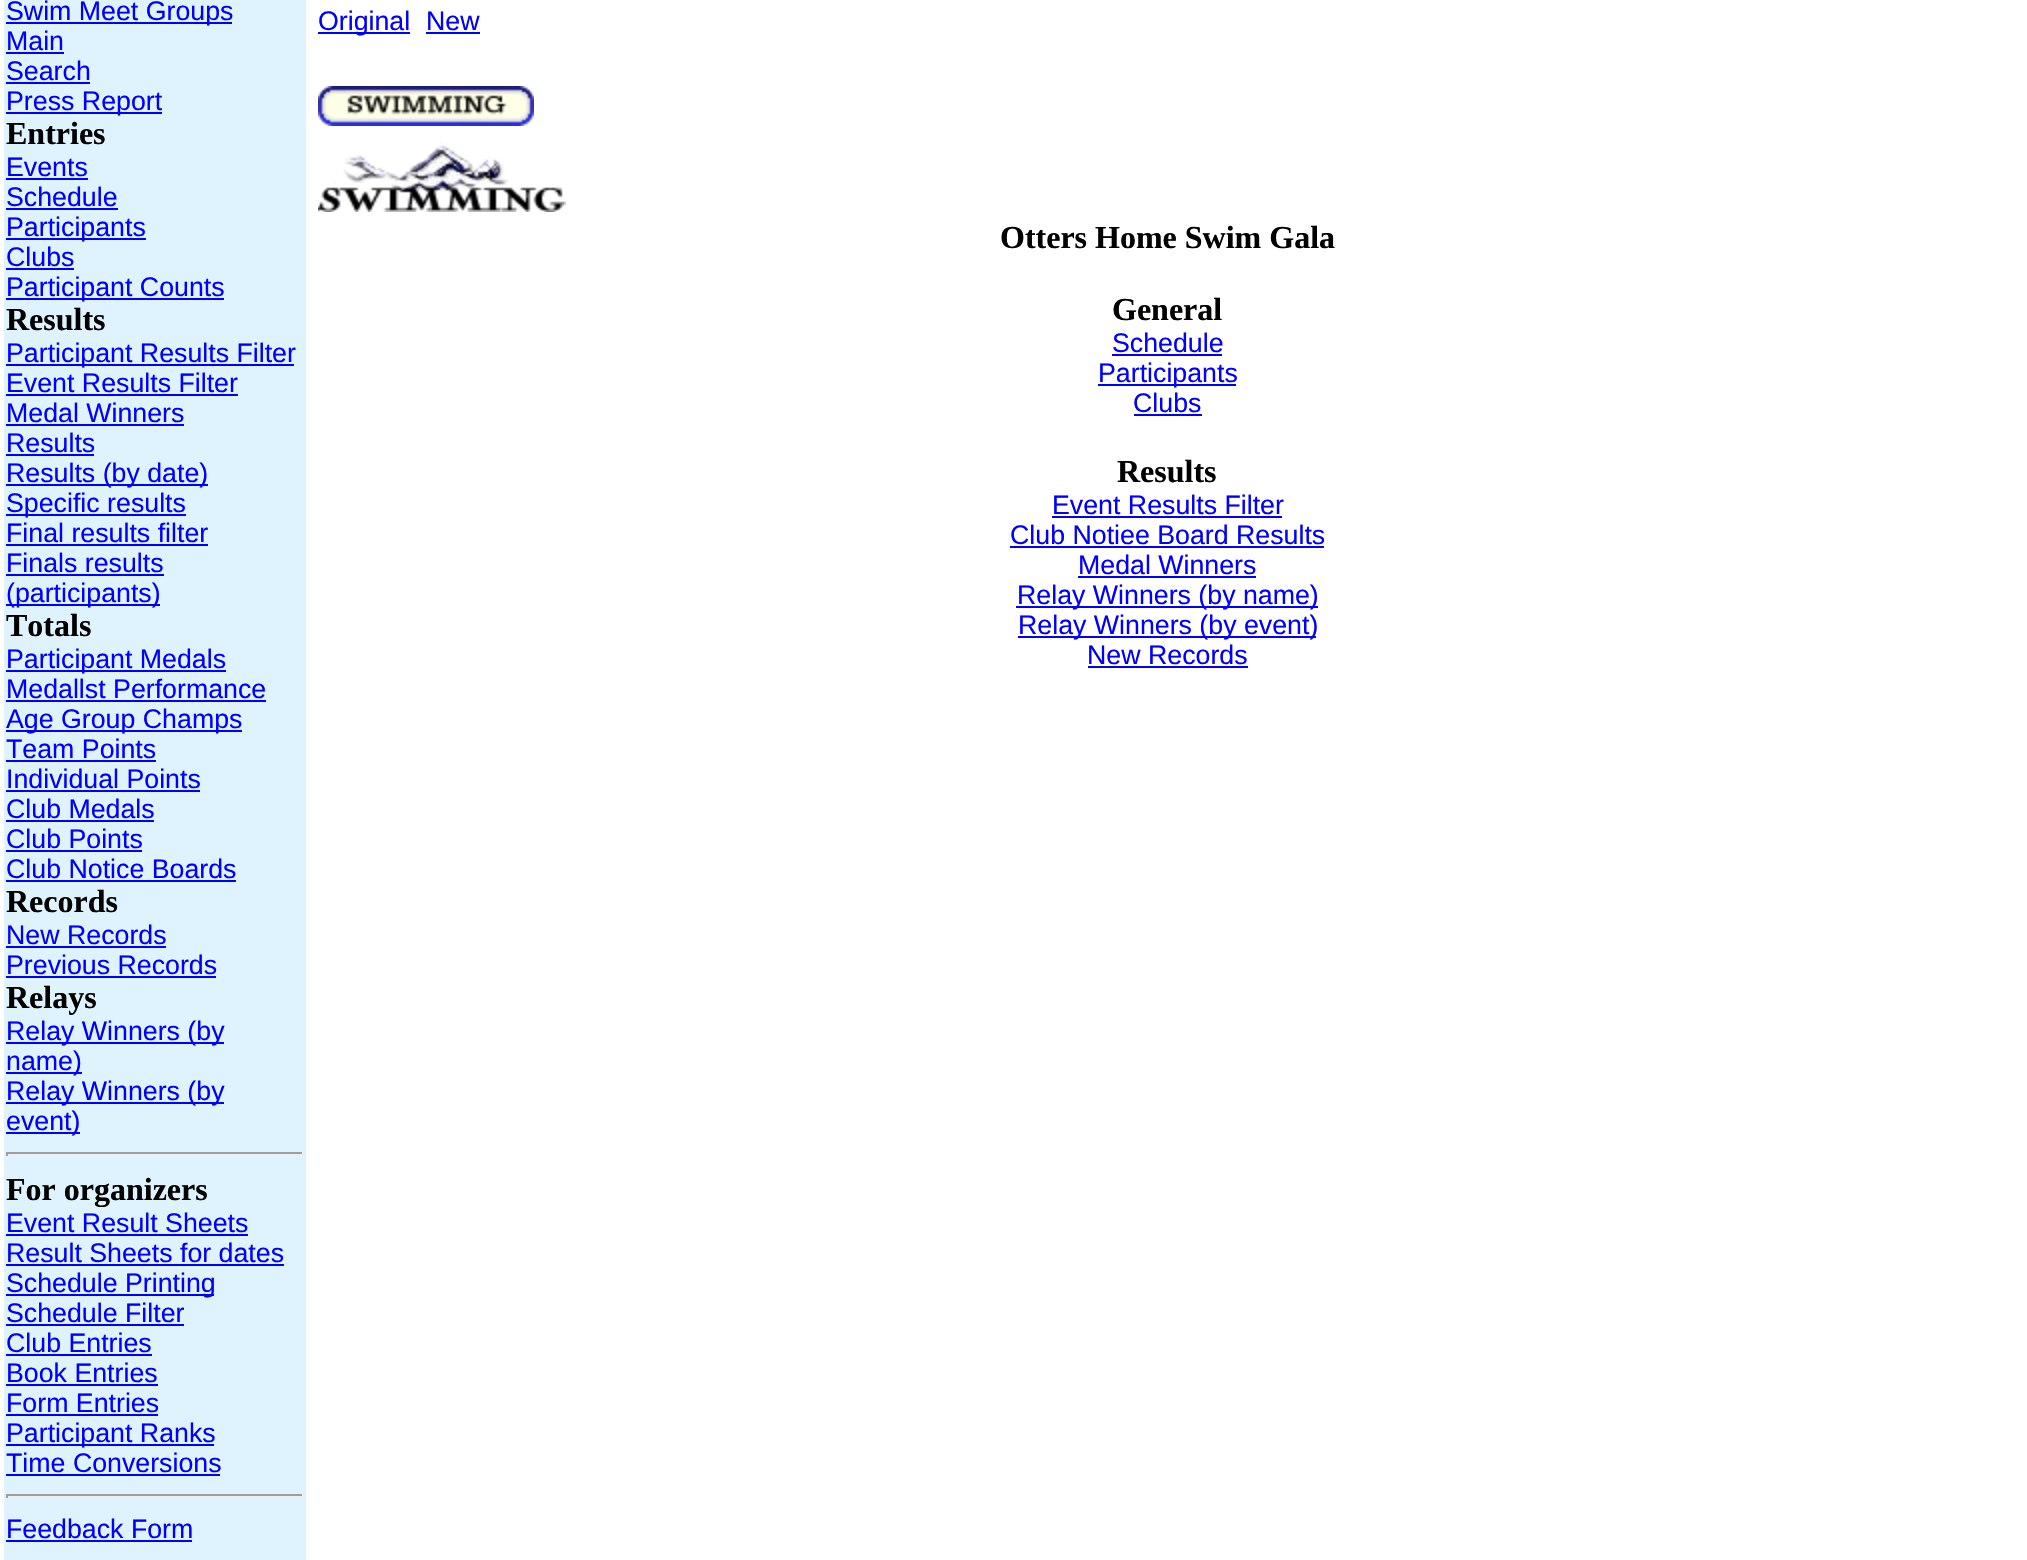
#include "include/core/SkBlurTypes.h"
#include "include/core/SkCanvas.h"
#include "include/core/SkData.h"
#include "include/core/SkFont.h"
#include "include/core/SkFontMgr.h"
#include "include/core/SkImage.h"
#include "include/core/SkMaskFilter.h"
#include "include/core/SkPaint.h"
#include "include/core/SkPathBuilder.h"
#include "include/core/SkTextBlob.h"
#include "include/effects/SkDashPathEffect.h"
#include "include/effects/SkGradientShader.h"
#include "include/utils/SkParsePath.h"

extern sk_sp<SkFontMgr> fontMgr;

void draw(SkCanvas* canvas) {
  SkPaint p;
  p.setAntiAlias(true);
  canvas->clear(SK_ColorWHITE);
  p.setColor(SkColorSetRGB(222, 243, 254));
  canvas->drawRect(SkRect::MakeLTRB(4, 0, 306, 1560), p);
  p.setColor(SkColorSetRGB(0, 0, 255));
  canvas->drawRect(SkRect::MakeLTRB(6, 22, 232, 24), p);
  canvas->drawRect(SkRect::MakeLTRB(6, 52, 64, 54), p);
  canvas->drawRect(SkRect::MakeLTRB(6, 82, 90, 84), p);
  canvas->drawRect(SkRect::MakeLTRB(6, 112, 162, 114), p);
  canvas->drawRect(SkRect::MakeLTRB(6, 178, 88, 180), p);
  canvas->drawRect(SkRect::MakeLTRB(6, 208, 118, 210), p);
  canvas->drawRect(SkRect::MakeLTRB(6, 238, 146, 240), p);
  canvas->drawRect(SkRect::MakeLTRB(6, 268, 74, 270), p);
  canvas->drawRect(SkRect::MakeLTRB(6, 298, 224, 300), p);
  canvas->drawRect(SkRect::MakeLTRB(6, 364, 294, 366), p);
  canvas->drawRect(SkRect::MakeLTRB(6, 394, 238, 396), p);
  canvas->drawRect(SkRect::MakeLTRB(6, 424, 184, 426), p);
  canvas->drawRect(SkRect::MakeLTRB(6, 454, 94, 456), p);
  canvas->drawRect(SkRect::MakeLTRB(6, 484, 208, 486), p);
  canvas->drawRect(SkRect::MakeLTRB(6, 514, 186, 516), p);
  canvas->drawRect(SkRect::MakeLTRB(6, 544, 208, 546), p);
  canvas->drawRect(SkRect::MakeLTRB(6, 574, 164, 576), p);
  canvas->drawRect(SkRect::MakeLTRB(6, 604, 160, 606), p);
  canvas->drawRect(SkRect::MakeLTRB(6, 670, 226, 672), p);
  canvas->drawRect(SkRect::MakeLTRB(6, 700, 266, 702), p);
  canvas->drawRect(SkRect::MakeLTRB(6, 730, 242, 732), p);
  canvas->drawRect(SkRect::MakeLTRB(6, 760, 156, 762), p);
  canvas->drawRect(SkRect::MakeLTRB(6, 790, 200, 792), p);
  canvas->drawRect(SkRect::MakeLTRB(6, 820, 154, 822), p);
  canvas->drawRect(SkRect::MakeLTRB(6, 850, 142, 852), p);
  canvas->drawRect(SkRect::MakeLTRB(6, 880, 236, 882), p);
  canvas->drawRect(SkRect::MakeLTRB(6, 946, 166, 948), p);
  canvas->drawRect(SkRect::MakeLTRB(6, 976, 216, 978), p);
  canvas->drawRect(SkRect::MakeLTRB(6, 1042, 224, 1044), p);
  canvas->drawRect(SkRect::MakeLTRB(6, 1072, 82, 1074), p);
  canvas->drawRect(SkRect::MakeLTRB(6, 1102, 224, 1104), p);
  canvas->drawRect(SkRect::MakeLTRB(6, 1132, 80, 1134), p);
  p.setColor(SkColorSetRGB(159, 159, 159));
  canvas->drawRect(SkRect::MakeLTRB(6, 1152, 304, 1154), p);
  p.setColor(SkColorSetRGB(238, 238, 238));
  canvas->drawRect(SkRect::MakeLTRB(302, 1152, 304, 1156), p);
  canvas->drawRect(SkRect::MakeLTRB(6, 1154, 304, 1156), p);
  p.setColor(SkColorSetRGB(159, 159, 159));
  canvas->drawRect(SkRect::MakeLTRB(6, 1152, 8, 1156), p);
  p.setColor(SkColorSetRGB(0, 0, 255));
  canvas->drawRect(SkRect::MakeLTRB(6, 1234, 248, 1236), p);
  canvas->drawRect(SkRect::MakeLTRB(6, 1264, 284, 1266), p);
  canvas->drawRect(SkRect::MakeLTRB(6, 1294, 214, 1296), p);
  canvas->drawRect(SkRect::MakeLTRB(6, 1324, 184, 1326), p);
  canvas->drawRect(SkRect::MakeLTRB(6, 1354, 152, 1356), p);
  canvas->drawRect(SkRect::MakeLTRB(6, 1384, 158, 1386), p);
  canvas->drawRect(SkRect::MakeLTRB(6, 1414, 158, 1416), p);
  canvas->drawRect(SkRect::MakeLTRB(6, 1444, 214, 1446), p);
  canvas->drawRect(SkRect::MakeLTRB(6, 1474, 220, 1476), p);
  p.setColor(SkColorSetRGB(159, 159, 159));
  canvas->drawRect(SkRect::MakeLTRB(6, 1494, 304, 1496), p);
  p.setColor(SkColorSetRGB(238, 238, 238));
  canvas->drawRect(SkRect::MakeLTRB(302, 1494, 304, 1498), p);
  canvas->drawRect(SkRect::MakeLTRB(6, 1496, 304, 1498), p);
  p.setColor(SkColorSetRGB(159, 159, 159));
  canvas->drawRect(SkRect::MakeLTRB(6, 1494, 8, 1498), p);
  p.setColor(SkColorSetRGB(0, 0, 255));
  canvas->drawRect(SkRect::MakeLTRB(6, 1540, 192, 1542), p);
  canvas->drawRect(SkRect::MakeLTRB(318, 32, 410, 34), p);
  canvas->drawRect(SkRect::MakeLTRB(426, 32, 480, 34), p);
  canvas->drawImageRect(SkImages::DeferredFromEncodedData(SkData::MakeFromFileName("images/1.png")), SkRect::MakeLTRB(318, 86, 534, 126), SkSamplingOptions());
  canvas->drawImageRect(SkImages::DeferredFromEncodedData(SkData::MakeFromFileName("images/2.png")), SkRect::MakeLTRB(318, 138, 566, 212), SkSamplingOptions());
  canvas->drawRect(SkRect::MakeLTRB(1112, 354, 1222, 356), p);
  canvas->drawRect(SkRect::MakeLTRB(1098, 384, 1236, 386), p);
  canvas->drawRect(SkRect::MakeLTRB(1134, 414, 1202, 416), p);
  canvas->drawRect(SkRect::MakeLTRB(1052, 516, 1282, 518), p);
  canvas->drawRect(SkRect::MakeLTRB(1010, 546, 1324, 548), p);
  canvas->drawRect(SkRect::MakeLTRB(1078, 576, 1256, 578), p);
  canvas->drawRect(SkRect::MakeLTRB(1016, 606, 1318, 608), p);
  canvas->drawRect(SkRect::MakeLTRB(1018, 636, 1316, 638), p);
  canvas->drawRect(SkRect::MakeLTRB(1088, 666, 1248, 668), p);
  SkFont font1(fontMgr->matchFamilyStyle("Liberation Sans", SkFontStyle::Normal()), 26.75f);
  font1.setSubpixel(true);
  canvas->drawString("Swim Meet Groups", 6, 20, font1, p);
  canvas->drawString("Main", 6, 50, font1, p);
  canvas->drawString("Search", 6, 80, font1, p);
  canvas->drawString("Press Report", 6, 110, font1, p);
  SkFont font2(fontMgr->matchFamilyStyle("Liberation Serif", SkFontStyle::Bold()), 32);
  font2.setSubpixel(true);
  p.setColor(SK_ColorBLACK);
  canvas->drawString("Entries", 6, 144, font2, p);
  p.setColor(SkColorSetRGB(0, 0, 255));
  canvas->drawString("Events", 6, 176, font1, p);
  canvas->drawString("Schedule", 6, 206, font1, p);
  canvas->drawString("Participants", 6, 236, font1, p);
  canvas->drawString("Clubs", 6, 266, font1, p);
  canvas->drawString("Participant Counts", 6, 296, font1, p);
  p.setColor(SK_ColorBLACK);
  canvas->drawString("Results", 6, 330, font2, p);
  p.setColor(SkColorSetRGB(0, 0, 255));
  canvas->drawString("Participant Results Filter", 6, 362, font1, p);
  canvas->drawString("Event Results Filter", 6, 392, font1, p);
  canvas->drawString("Medal Winners", 6, 422, font1, p);
  canvas->drawString("Results", 6, 452, font1, p);
  canvas->drawString("Results (by date)", 6, 482, font1, p);
  canvas->drawString("Specific results", 6, 512, font1, p);
  canvas->drawString("Final results filter", 6, 542, font1, p);
  canvas->drawString("Finals results", 6, 572, font1, p);
  canvas->drawString("(participants)", 6, 602, font1, p);
  p.setColor(SK_ColorBLACK);
  canvas->drawString("Totals", 6, 636, font2, p);
  p.setColor(SkColorSetRGB(0, 0, 255));
  canvas->drawString("Participant Medals", 6, 668, font1, p);
  canvas->drawString("Medallst Performance", 6, 698, font1, p);
  canvas->drawString("Age Group Champs", 6, 728, font1, p);
  canvas->drawString("Team Points", 6, 758, font1, p);
  canvas->drawString("Individual Points", 6, 788, font1, p);
  canvas->drawString("Club Medals", 6, 818, font1, p);
  canvas->drawString("Club Points", 6, 848, font1, p);
  canvas->drawString("Club Notice Boards", 6, 878, font1, p);
  p.setColor(SK_ColorBLACK);
  canvas->drawString("Records", 6, 912, font2, p);
  p.setColor(SkColorSetRGB(0, 0, 255));
  canvas->drawString("New Records", 6, 944, font1, p);
  canvas->drawString("Previous Records", 6, 974, font1, p);
  p.setColor(SK_ColorBLACK);
  canvas->drawString("Relays", 6, 1008, font2, p);
  p.setColor(SkColorSetRGB(0, 0, 255));
  canvas->drawString("Relay Winners (by", 6, 1040, font1, p);
  canvas->drawString("name)", 6, 1070, font1, p);
  canvas->drawString("Relay Winners (by", 6, 1100, font1, p);
  canvas->drawString("event)", 6, 1130, font1, p);
  p.setColor(SK_ColorBLACK);
  canvas->drawString("For organizers", 6, 1200, font2, p);
  p.setColor(SkColorSetRGB(0, 0, 255));
  canvas->drawString("Event Result Sheets", 6, 1232, font1, p);
  canvas->drawString("Result Sheets for dates", 6, 1262, font1, p);
  canvas->drawString("Schedule Printing", 6, 1292, font1, p);
  canvas->drawString("Schedule Filter", 6, 1322, font1, p);
  canvas->drawString("Club Entries", 6, 1352, font1, p);
  canvas->drawString("Book Entries", 6, 1382, font1, p);
  canvas->drawString("Form Entries", 6, 1412, font1, p);
  canvas->drawString("Participant Ranks", 6, 1442, font1, p);
  canvas->drawString("Time Conversions", 6, 1472, font1, p);
  canvas->drawString("Feedback Form", 6, 1538, font1, p);
  canvas->drawString("Original", 318, 30, font1, p);
  canvas->drawString("New", 426, 30, font1, p);
  p.setColor(SK_ColorBLACK);
  canvas->drawString("Otters Home Swim Gala", 1000, 248, font2, p);
  canvas->drawString("General", 1112, 320, font2, p);
  p.setColor(SkColorSetRGB(0, 0, 255));
  canvas->drawString("Schedule", 1112, 352, font1, p);
  canvas->drawString("Participants", 1098, 382, font1, p);
  canvas->drawString("Clubs", 1133, 412, font1, p);
  p.setColor(SK_ColorBLACK);
  canvas->drawString("Results", 1117, 482, font2, p);
  p.setColor(SkColorSetRGB(0, 0, 255));
  canvas->drawString("Event Results Filter", 1052, 514, font1, p);
  canvas->drawString("Club Notiee Board Results", 1010, 544, font1, p);
  canvas->drawString("Medal Winners", 1078, 574, font1, p);
  canvas->drawString("Relay Winners (by name)", 1017, 604, font1, p);
  canvas->drawString("Relay Winners (by event)", 1018, 634, font1, p);
  canvas->drawString("New Records", 1087, 664, font1, p);
}
